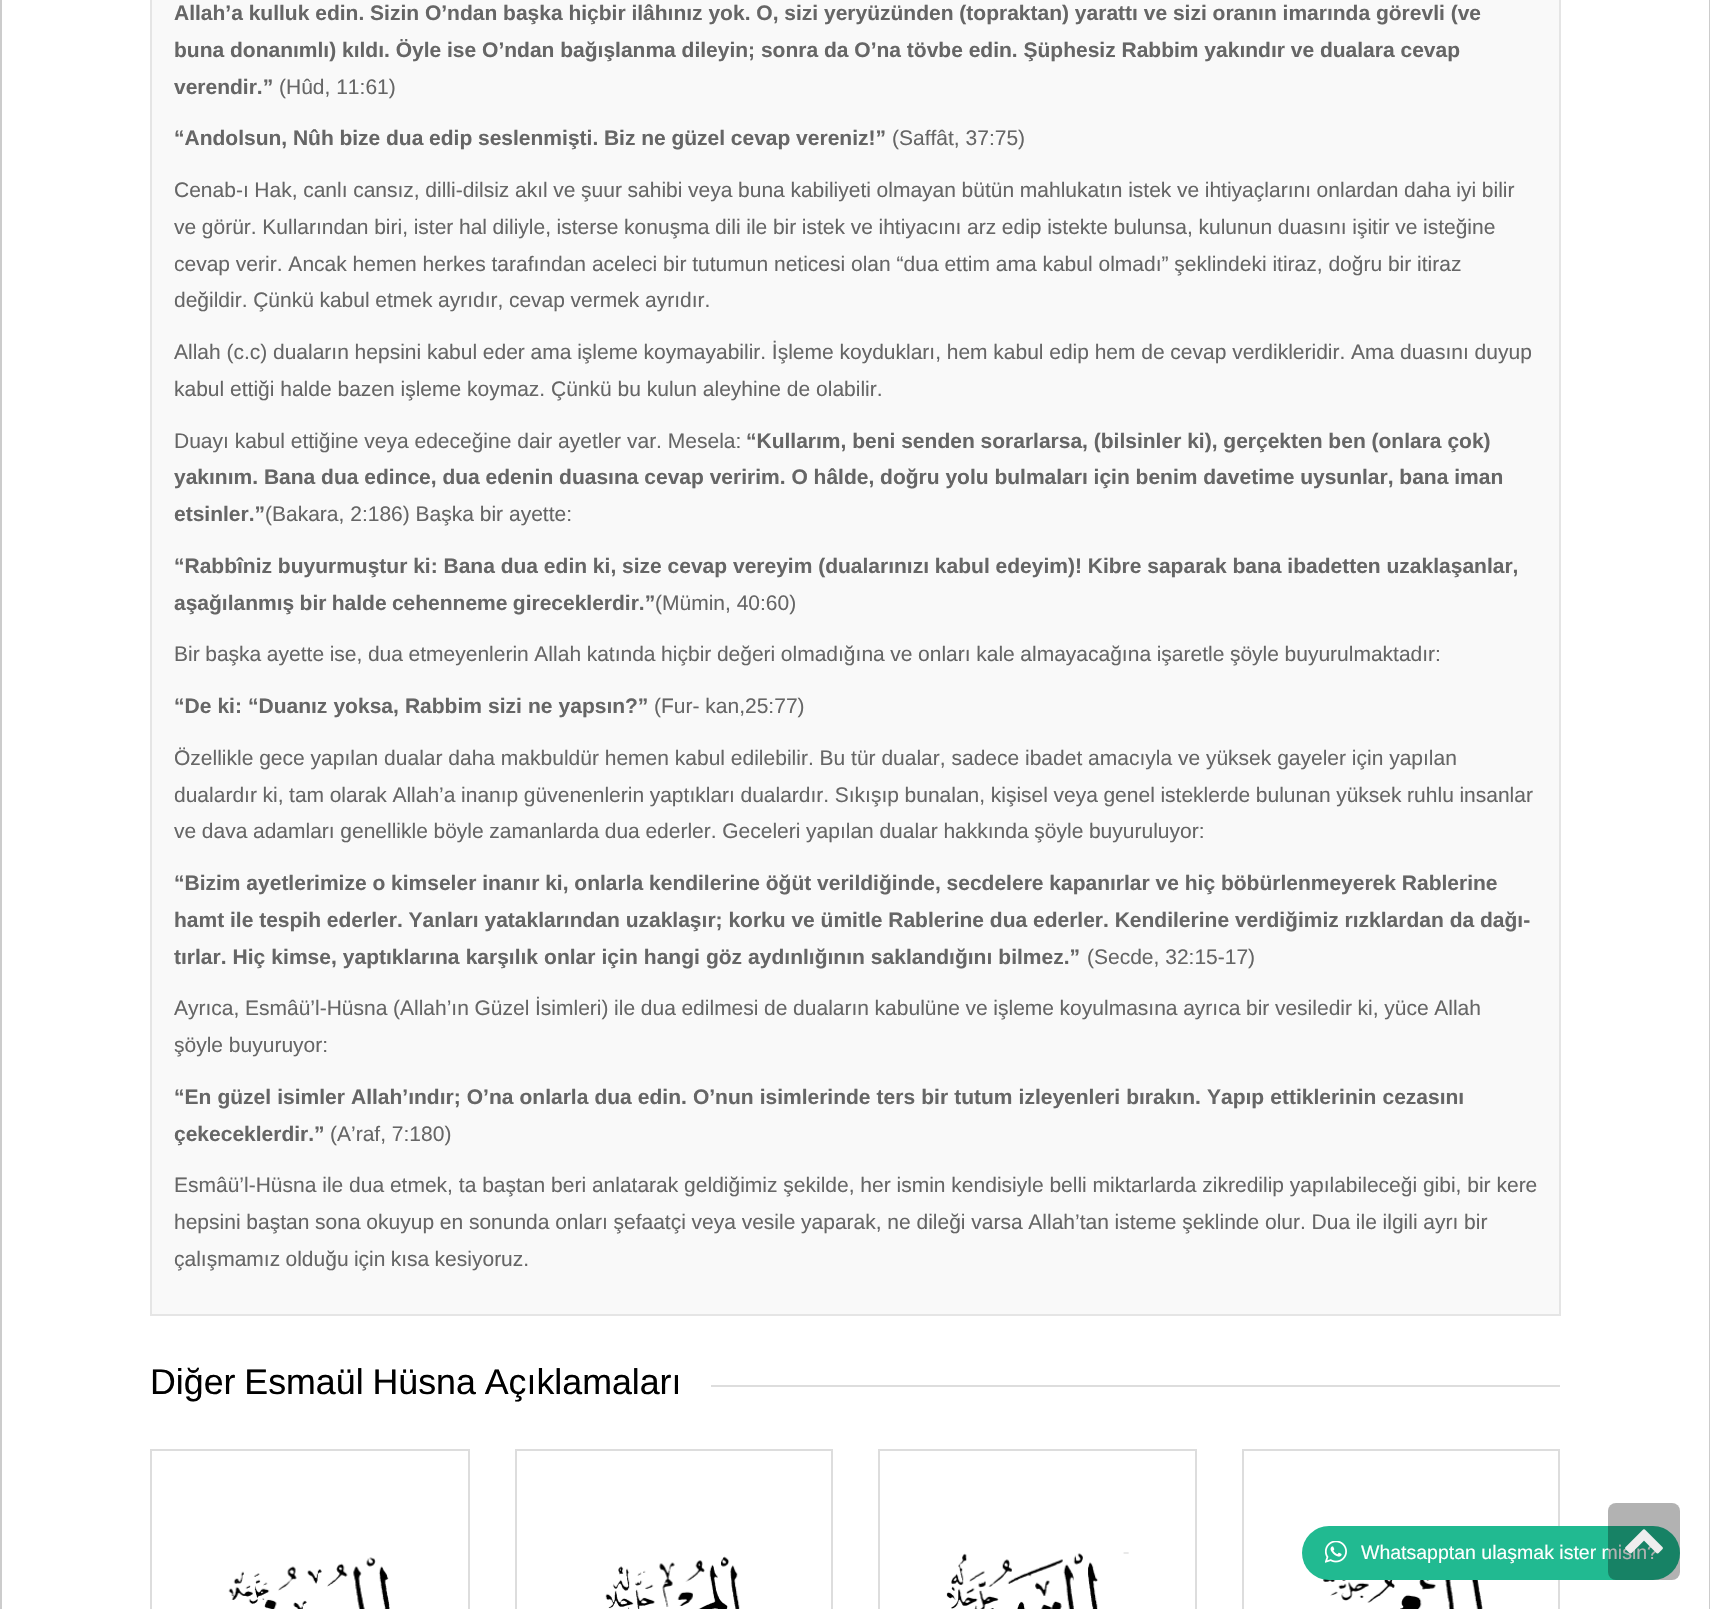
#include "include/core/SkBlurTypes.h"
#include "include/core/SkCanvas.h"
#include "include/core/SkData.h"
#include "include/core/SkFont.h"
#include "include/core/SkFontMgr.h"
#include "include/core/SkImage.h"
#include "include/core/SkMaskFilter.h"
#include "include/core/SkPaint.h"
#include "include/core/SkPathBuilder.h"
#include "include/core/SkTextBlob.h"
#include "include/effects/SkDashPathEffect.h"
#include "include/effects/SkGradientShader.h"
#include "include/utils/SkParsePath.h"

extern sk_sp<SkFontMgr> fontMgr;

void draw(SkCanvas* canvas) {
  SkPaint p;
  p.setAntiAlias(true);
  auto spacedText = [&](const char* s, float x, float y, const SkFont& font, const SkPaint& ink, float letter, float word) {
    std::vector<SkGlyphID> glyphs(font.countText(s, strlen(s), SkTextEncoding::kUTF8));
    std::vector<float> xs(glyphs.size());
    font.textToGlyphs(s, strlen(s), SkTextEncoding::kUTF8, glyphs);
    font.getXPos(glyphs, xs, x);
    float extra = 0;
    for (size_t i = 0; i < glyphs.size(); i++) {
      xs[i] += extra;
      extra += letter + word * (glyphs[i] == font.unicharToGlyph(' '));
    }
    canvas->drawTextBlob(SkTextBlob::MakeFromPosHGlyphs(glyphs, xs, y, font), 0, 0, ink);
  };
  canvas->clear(SK_ColorWHITE);
  p.setColor(SkColorSetRGB(204, 204, 204));
  canvas->drawRect(SkRect::MakeLTRB(1709, 0, 1710, 1609), p);
  canvas->drawRect(SkRect::MakeLTRB(0, 0, 2, 1609), p);
  p.setColor(SkColorSetRGB(249, 249, 249));
  canvas->drawRect(SkRect::MakeLTRB(152, 0, 1559, 1314), p);
  p.setColor(SkColorSetRGB(229, 229, 229));
  canvas->drawRect(SkRect::MakeLTRB(1559, 0, 1561, 1316), p);
  canvas->drawRect(SkRect::MakeLTRB(150, 1314, 1560, 1316), p);
  canvas->drawRect(SkRect::MakeLTRB(150, 0, 152, 1316), p);
  p.setColor(SkColorSetRGB(221, 221, 221));
  canvas->drawRect(SkRect::MakeLTRB(711, 1385, 1560, 1387), p);
  p.setStyle(SkPaint::kStroke_Style);
  p.setStrokeWidth(2);
  canvas->drawRect(SkRect::MakeLTRB(151, 1450, 469, 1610), p);
  canvas->drawImageRect(SkImages::DeferredFromEncodedData(SkData::MakeFromFileName("images/1.png")), SkRect::MakeLTRB(228, 1557, 390, 1609), SkSamplingOptions());
  canvas->drawRect(SkRect::MakeLTRB(516, 1450, 832, 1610), p);
  canvas->drawImageRect(SkImages::DeferredFromEncodedData(SkData::MakeFromFileName("images/2.png")), SkRect::MakeLTRB(605, 1556, 740, 1609), SkSamplingOptions());
  canvas->drawRect(SkRect::MakeLTRB(879, 1450, 1196, 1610), p);
  canvas->drawImageRect(SkImages::DeferredFromEncodedData(SkData::MakeFromFileName("images/3.png")), SkRect::MakeLTRB(946, 1552, 1129, 1609), SkSamplingOptions());
  canvas->drawRect(SkRect::MakeLTRB(1243, 1450, 1559, 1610), p);
  canvas->drawImageRect(SkImages::DeferredFromEncodedData(SkData::MakeFromFileName("images/4.png")), SkRect::MakeLTRB(1323, 1579, 1483, 1609), SkSamplingOptions());
  p.setStyle(SkPaint::kFill_Style);
  p.setColor(SkColorSetRGB(33, 186, 145));
  canvas->drawRoundRect(SkRect::MakeLTRB(1302, 1526, 1680, 1580), 27, 27, p);
  canvas->drawImageRect(SkImages::DeferredFromEncodedData(SkData::MakeFromFileName("images/6.png")), SkRect::MakeLTRB(1325, 1541, 1347, 1563), SkSamplingOptions());
  SkFont font1(fontMgr->matchFamilyStyle("Liberation Sans", SkFontStyle::Bold()), 21);
  font1.setSubpixel(true);
  p.setColor(SkColorSetRGB(102, 102, 102));
  canvas->drawString("Allah’a kulluk edin. Sizin O’ndan başka hiçbir ilâhınız yok. O, sizi yeryüzünden (topraktan) yarattı ve sizi oranın imarında görevli (ve", 174, 20, font1, p);
  canvas->drawString("buna donanımlı) kıldı. Öyle ise O’ndan bağışlanma dileyin; sonra da O’na tövbe edin. Şüphesiz Rabbim yakındır ve dualara cevap", 174, 57, font1, p);
  canvas->drawString("verendir.”", 174, 94, font1, p);
  SkFont font2(fontMgr->matchFamilyStyle("Liberation Sans", SkFontStyle::Normal()), 21);
  font2.setSubpixel(true);
  canvas->drawString("(Hûd, 11:61)", 279, 94, font2, p);
  spacedText("“Andolsun, Nûh bize dua edip seslenmişti. Biz ne güzel cevap vereniz!”", 174, 145, font1, p, 0, -0.1f);
  canvas->drawString("(Saffât, 37:75)", 892, 145, font2, p);
  spacedText("Cenab-ı Hak, canlı cansız, dilli-dilsiz akıl ve şuur sahibi veya buna kabiliyeti olmayan bütün mahlukatın istek ve ihtiyaçlarını onlardan daha iyi bilir", 174, 197, font2, p, 0, -0.2f);
  spacedText("ve görür. Kullarından biri, ister hal diliyle, isterse konuşma dili ile bir istek ve ihtiyacını arz edip istekte bulunsa, kulunun duasını işitir ve isteğine", 174, 234, font2, p, 0, -0.2f);
  canvas->drawString("cevap verir. Ancak hemen herkes tarafından aceleci bir tutumun neticesi olan “dua ettim ama kabul olmadı” şeklindeki itiraz, doğru bir itiraz", 174, 271, font2, p);
  spacedText("değildir. Çünkü kabul etmek ayrıdır, cevap vermek ayrıdır.", 174, 307, font2, p, 0, -0.25f);
  spacedText("Allah (c.c) duaların hepsini kabul eder ama işleme koymayabilir. İşleme koydukları, hem kabul edip hem de cevap verdikleridir. Ama duasını duyup", 174, 359, font2, p, 0, -0.1f);
  canvas->drawString("kabul ettiği halde bazen işleme koymaz. Çünkü bu kulun aleyhine de olabilir.", 174, 396, font2, p);
  canvas->drawString("Duayı kabul ettiğine veya edeceğine dair ayetler var. Mesela:", 174, 448, font2, p);
  canvas->drawString("“Kullarım, beni senden sorarlarsa, (bilsinler ki), gerçekten ben (onlara çok)", 746, 448, font1, p);
  canvas->drawString("yakınım. Bana dua edince, dua edenin duasına cevap veririm. O hâlde, doğru yolu bulmaları için benim davetime uysunlar, bana iman", 174, 484, font1, p);
  canvas->drawString("etsinler.”", 174, 521, font1, p);
  canvas->drawString("(Bakara, 2:186) Başka bir ayette:", 265, 521, font2, p);
  canvas->drawString("“Rabbîniz buyurmuştur ki: Bana dua edin ki, size cevap vereyim (dualarınızı kabul edeyim)! Kibre saparak bana ibadetten uzaklaşanlar,", 174, 573, font1, p);
  spacedText("aşağılanmış bir halde cehenneme gireceklerdir.”", 174, 610, font1, p, 0, -0.5f);
  canvas->drawString("(Mümin, 40:60)", 655, 610, font2, p);
  spacedText("Bir başka ayette ise, dua etmeyenlerin Allah katında hiçbir değeri olmadığına ve onları kale almayacağına işaretle şöyle buyurulmaktadır:", 174, 661, font2, p, 0, -0.25f);
  spacedText("“De ki: “Duanız yoksa, Rabbim sizi ne yapsın?”", 174, 713, font1, p, 0, 0.25f);
  canvas->drawString("(Fur- kan,25:77)", 654, 713, font2, p);
  canvas->drawString("Özellikle gece yapılan dualar daha makbuldür hemen kabul edilebilir. Bu tür dualar, sadece ibadet amacıyla ve yüksek gayeler için yapılan", 174, 765, font2, p);
  spacedText("dualardır ki, tam olarak Allah’a inanıp güvenenlerin yaptıkları dualardır. Sıkışıp bunalan, kişisel veya genel isteklerde bulunan yüksek ruhlu insanlar", 174, 802, font2, p, 0, -0.25f);
  spacedText("ve dava adamları genellikle böyle zamanlarda dua ederler. Geceleri yapılan dualar hakkında şöyle buyuruluyor:", 174, 838, font2, p, 0, -0.2f);
  canvas->drawString("“Bizim ayetlerimize o kimseler inanır ki, onlarla kendilerine öğüt verildiğinde, secdelere kapanırlar ve hiç böbürlenmeyerek Rablerine", 174, 890, font1, p);
  canvas->drawString("hamt ile tespih ederler. Yanları yataklarından uzaklaşır; korku ve ümitle Rablerine dua ederler. Kendilerine verdiğimiz rızklardan da dağı-", 174, 927, font1, p);
  spacedText("tırlar. Hiç kimse, yaptıklarına karşılık onlar için hangi göz aydınlığının saklandığını bilmez.”", 174, 964, font1, p, 0, 0.25f);
  canvas->drawString("(Secde, 32:15-17)", 1087, 964, font2, p);
  spacedText("Ayrıca, Esmâü’l-Hüsna (Allah’ın Güzel İsimleri) ile dua edilmesi de duaların kabulüne ve işleme koyulmasına ayrıca bir vesiledir ki, yüce Allah", 174, 1015, font2, p, 0, -0.2f);
  canvas->drawString("şöyle buyuruyor:", 174, 1052, font2, p);
  spacedText("“En güzel isimler Allah’ındır; O’na onlarla dua edin. O’nun isimlerinde ters bir tutum izleyenleri bırakın. Yapıp ettiklerinin cezasını", 174, 1104, font1, p, 0, 0.25f);
  canvas->drawString("çekeceklerdir.”", 174, 1141, font1, p);
  canvas->drawString("(A’raf, 7:180)", 330, 1141, font2, p);
  canvas->drawString("Esmâü’l-Hüsna ile dua etmek, ta baştan beri anlatarak geldiğimiz şekilde, her ismin kendisiyle belli miktarlarda zikredilip yapılabileceği gibi, bir kere", 174, 1192, font2, p);
  spacedText("hepsini baştan sona okuyup en sonunda onları şefaatçi veya vesile yaparak, ne dileği varsa Allah’tan isteme şeklinde olur. Dua ile ilgili ayrı bir", 174, 1229, font2, p, 0, -0.1f);
  spacedText("çalışmamız olduğu için kısa kesiyoruz.", 174, 1266, font2, p, 0, -0.5f);
  SkFont font3(fontMgr->matchFamilyStyle("Liberation Sans", SkFontStyle::Normal()), 35.75f);
  font3.setSubpixel(true);
  p.setColor(SK_ColorBLACK);
  spacedText("Diğer Esmaül Hüsna Açıklamaları", 150, 1394, font3, p, 0, -1);
  SkFont font4(fontMgr->matchFamilyStyle("Liberation Sans", SkFontStyle::Normal()), 19.5f);
  font4.setSubpixel(true);
  p.setColor(SK_ColorWHITE);
  canvas->drawString("Whatsapptan ulaşmak ister misin?", 1361, 1559, font4, p);
  p.setColor(SkColorSetARGB(77, 0, 0, 0));
  canvas->drawRoundRect(SkRect::MakeLTRB(1608, 1503, 1680, 1580), 8, 8, p);
  canvas->drawImageRect(SkImages::DeferredFromEncodedData(SkData::MakeFromFileName("images/5.png")), SkRect::MakeLTRB(1625, 1529, 1663, 1554), SkSamplingOptions());
}
